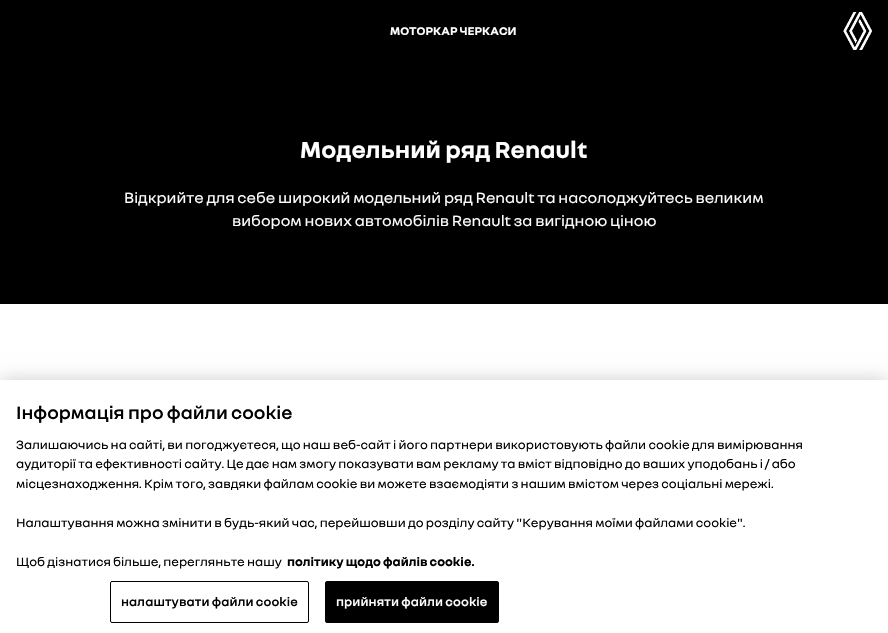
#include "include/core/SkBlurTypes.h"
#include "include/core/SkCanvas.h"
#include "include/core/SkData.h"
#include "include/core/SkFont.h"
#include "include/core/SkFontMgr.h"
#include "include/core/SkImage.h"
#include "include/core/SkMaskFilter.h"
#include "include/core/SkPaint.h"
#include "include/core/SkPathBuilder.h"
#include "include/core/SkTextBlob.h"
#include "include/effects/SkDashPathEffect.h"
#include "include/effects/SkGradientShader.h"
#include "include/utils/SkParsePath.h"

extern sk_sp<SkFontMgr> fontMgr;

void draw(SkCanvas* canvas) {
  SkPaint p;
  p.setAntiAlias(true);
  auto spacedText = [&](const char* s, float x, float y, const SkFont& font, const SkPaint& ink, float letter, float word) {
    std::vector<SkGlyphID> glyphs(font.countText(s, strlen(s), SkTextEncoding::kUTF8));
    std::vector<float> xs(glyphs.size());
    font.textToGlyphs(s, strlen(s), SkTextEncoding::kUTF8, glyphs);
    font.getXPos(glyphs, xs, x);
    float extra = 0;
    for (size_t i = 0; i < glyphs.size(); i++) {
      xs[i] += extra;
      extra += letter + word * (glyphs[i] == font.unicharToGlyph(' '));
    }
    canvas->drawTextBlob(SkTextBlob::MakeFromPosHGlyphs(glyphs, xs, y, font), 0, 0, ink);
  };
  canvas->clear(SK_ColorWHITE);
  p.setColor(SK_ColorBLACK);
  canvas->drawRect(SkRect::MakeLTRB(0, 0, 888, 304), p);
  canvas->drawImageRect(SkImages::DeferredFromEncodedData(SkData::MakeFromFileName("images/1.png")), SkRect::MakeLTRB(843, 12, 872, 50), SkSamplingOptions());
  p.setColor(SkColorSetARGB(51, 0, 0, 0));
  p.setMaskFilter(SkMaskFilter::MakeBlur(kNormal_SkBlurStyle, 9));
  canvas->drawRect(SkRect::MakeLTRB(0, 380, 888, 633), p);
  p.setMaskFilter(nullptr);
  p.setColor(SK_ColorWHITE);
  canvas->drawRect(SkRect::MakeLTRB(0, 380, 888, 633), p);
  p.setStyle(SkPaint::kStroke_Style);
  p.setStrokeWidth(1);
  p.setColor(SK_ColorBLACK);
  canvas->drawRoundRect(SkRect::MakeLTRB(110.5f, 581.5f, 308.5f, 622.5f), 1.5f, 1.5f, p);
  p.setStyle(SkPaint::kFill_Style);
  canvas->drawRoundRect(SkRect::MakeLTRB(325.5f, 581.5f, 498.5f, 622.5f), 1.5f, 1.5f, p);
  p.setStyle(SkPaint::kStroke_Style);
  canvas->drawRoundRect(SkRect::MakeLTRB(325.5f, 581.5f, 498.5f, 622.5f), 1.5f, 1.5f, p);
  SkFont font1(fontMgr->matchFamilyStyle("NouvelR", SkFontStyle::Bold()), 12);
  font1.setSubpixel(true);
  p.setStyle(SkPaint::kFill_Style);
  p.setColor(SK_ColorWHITE);
  canvas->drawString("МОТОРКАР ЧЕРКАСИ", 390, 35, font1, p);
  SkFont font2(fontMgr->matchFamilyStyle("NouvelR", SkFontStyle::Bold()), 25);
  font2.setSubpixel(true);
  canvas->drawString("Модельний ряд Renault", 300, 158, font2, p);
  SkFont font3(fontMgr->matchFamilyStyle("NouvelR", SkFontStyle::Normal()), 16);
  font3.setSubpixel(true);
  canvas->drawString("Відкрийте для себе широкий модельний ряд Renault та насолоджуйтесь великим", 124, 203, font3, p);
  canvas->drawString("вибором нових автомобілів Renault за вигідною ціною", 232, 226, font3, p);
  SkFont font4(fontMgr->matchFamilyStyle("NouvelR", SkFontStyle(600, SkFontStyle::kNormal_Width, SkFontStyle::kUpright_Slant)), 19.25f);
  font4.setSubpixel(true);
  p.setColor(SK_ColorBLACK);
  canvas->drawString("Інформація про файли cookie", 16, 419, font4, p);
  SkFont font5(fontMgr->matchFamilyStyle("NouvelR", SkFontStyle::Normal()), 13);
  font5.setSubpixel(true);
  canvas->drawString("Залишаючись на сайті, ви погоджуєтеся, що наш веб-сайт і його партнери використовують файли cookie для вимірювання", 16, 449, font5, p);
  canvas->drawString("аудиторії та ефективності сайту. Це дає нам змогу показувати вам рекламу та вміст відповідно до ваших уподобань і / або", 16, 468, font5, p);
  canvas->drawString("місцезнаходження. Крім того, завдяки файлам cookie ви можете взаємодіяти з нашим вмістом через соціальні мережі.", 16, 488, font5, p);
  canvas->drawString("Налаштування можна змінити в будь-який час, перейшовши до розділу сайту \"Керування моїми файлами cookie\".", 16, 527, font5, p);
  canvas->drawString("Щоб дізнатися більше, перегляньте нашу", 16, 566, font5, p);
  SkFont font6(fontMgr->matchFamilyStyle("NouvelR", SkFontStyle::Bold()), 13);
  font6.setSubpixel(true);
  canvas->drawString("політику щодо файлів cookie.", 287, 566, font6, p);
  SkFont font7(fontMgr->matchFamilyStyle("NouvelR", SkFontStyle(600, SkFontStyle::kNormal_Width, SkFontStyle::kUpright_Slant)), 13);
  font7.setSubpixel(true);
  spacedText("налаштувати файли cookie", 121, 606, font7, p, 0.1f, 0);
  p.setColor(SK_ColorWHITE);
  spacedText("прийняти файли cookie", 336, 606, font7, p, 0.1f, 0);
}
